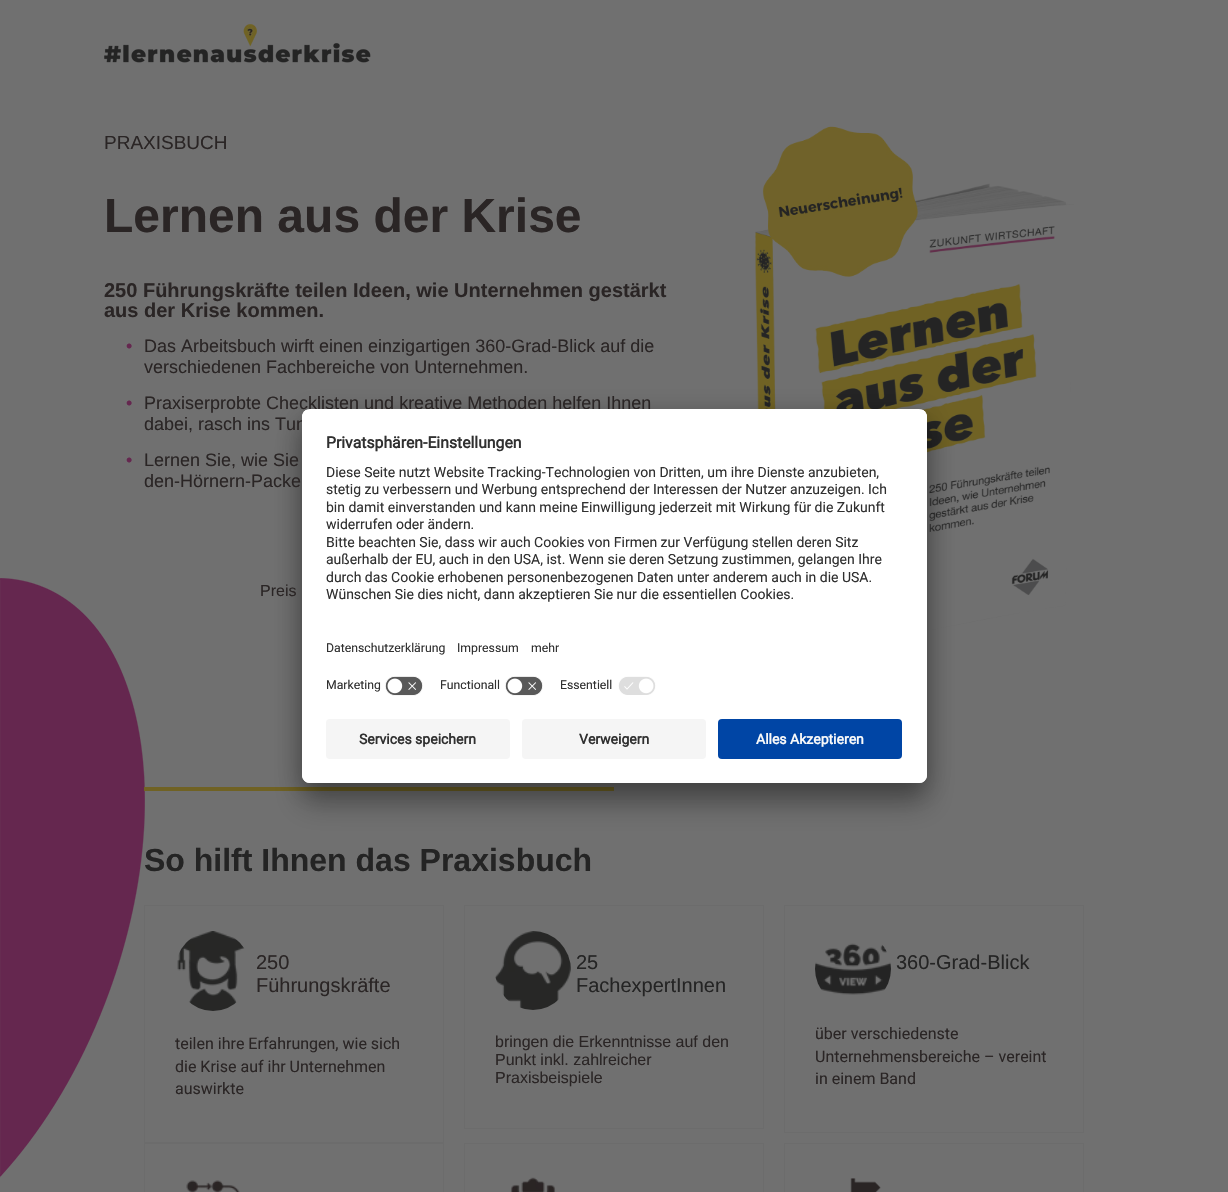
#include "include/core/SkBlurTypes.h"
#include "include/core/SkCanvas.h"
#include "include/core/SkData.h"
#include "include/core/SkFont.h"
#include "include/core/SkFontMgr.h"
#include "include/core/SkImage.h"
#include "include/core/SkMaskFilter.h"
#include "include/core/SkPaint.h"
#include "include/core/SkPathBuilder.h"
#include "include/core/SkTextBlob.h"
#include "include/effects/SkDashPathEffect.h"
#include "include/effects/SkGradientShader.h"
#include "include/utils/SkParsePath.h"

extern sk_sp<SkFontMgr> fontMgr;

void draw(SkCanvas* canvas) {
  SkPaint p;
  p.setAntiAlias(true);
  canvas->clear(SkColorSetRGB(112, 112, 112));
  canvas->drawImageRect(SkImages::DeferredFromEncodedData(SkData::MakeFromFileName("images/1.png")), SkRect::MakeLTRB(104, 24, 371, 63), SkSamplingOptions());
  canvas->drawImageRect(SkImages::DeferredFromEncodedData(SkData::MakeFromFileName("images/2.png")), SkRect::MakeLTRB(0, 578, 145, 1178), SkSamplingOptions());
  canvas->drawImageRect(SkImages::DeferredFromEncodedData(SkData::MakeFromFileName("images/3.png")), SkRect::MakeLTRB(754, 126, 1074, 664), SkSamplingOptions());
  p.setColor(SkColorSetRGB(112, 98, 36));
  canvas->drawRect(SkRect::MakeLTRB(144, 787, 614, 791), p);
  p.setStyle(SkPaint::kStroke_Style);
  p.setStrokeWidth(1);
  p.setColor(SkColorSetRGB(108, 108, 108));
  canvas->drawRect(SkRect::MakeLTRB(144.5f, 905.5f, 443.5f, 1142.5f), p);
  canvas->drawImageRect(SkImages::DeferredFromEncodedData(SkData::MakeFromFileName("images/4.png")), SkRect::MakeLTRB(177, 931, 245, 1011), SkSamplingOptions());
  canvas->drawRect(SkRect::MakeLTRB(464.5f, 905.5f, 763.5f, 1128.5f), p);
  canvas->drawImageRect(SkImages::DeferredFromEncodedData(SkData::MakeFromFileName("images/5.png")), SkRect::MakeLTRB(495, 931, 571, 1010), SkSamplingOptions());
  canvas->drawRect(SkRect::MakeLTRB(784.5f, 905.5f, 1083.5f, 1132.5f), p);
  canvas->drawImageRect(SkImages::DeferredFromEncodedData(SkData::MakeFromFileName("images/6.png")), SkRect::MakeLTRB(815, 943, 891, 995), SkSamplingOptions());
  canvas->drawRect(SkRect::MakeLTRB(144.5f, 1143.5f, 443.5f, 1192.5f), p);
  canvas->drawImageRect(SkImages::DeferredFromEncodedData(SkData::MakeFromFileName("images/7.png")), SkRect::MakeLTRB(186, 1180, 240, 1192), SkSamplingOptions());
  canvas->drawRect(SkRect::MakeLTRB(464.5f, 1143.5f, 763.5f, 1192.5f), p);
  canvas->drawImageRect(SkImages::DeferredFromEncodedData(SkData::MakeFromFileName("images/8.png")), SkRect::MakeLTRB(510, 1177, 556, 1192), SkSamplingOptions());
  canvas->drawRect(SkRect::MakeLTRB(784.5f, 1143.5f, 1083.5f, 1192.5f), p);
  canvas->drawImageRect(SkImages::DeferredFromEncodedData(SkData::MakeFromFileName("images/9.png")), SkRect::MakeLTRB(850, 1178, 881, 1192), SkSamplingOptions());
  p.setStyle(SkPaint::kFill_Style);
  p.setColor(SkColorSetARGB(77, 0, 0, 0));
  p.setMaskFilter(SkMaskFilter::MakeBlur(kNormal_SkBlurStyle, 14));
  canvas->drawRoundRect(SkRect::MakeLTRB(302, 429, 927, 803), 8, 8, p);
  p.setMaskFilter(nullptr);
  p.setColor(SkColorSetARGB(56, 0, 0, 0));
  p.setMaskFilter(SkMaskFilter::MakeBlur(kNormal_SkBlurStyle, 13));
  canvas->drawRoundRect(SkRect::MakeLTRB(302, 414, 927, 788), 8, 8, p);
  p.setMaskFilter(nullptr);
  SkFont font1(fontMgr->matchFamilyStyle("Liberation Sans", SkFontStyle::Normal()), 19);
  font1.setSubpixel(true);
  p.setColor(SkColorSetRGB(42, 37, 37));
  canvas->drawString("PRAXISBUCH", 104, 149, font1, p);
  SkFont font2(fontMgr->matchFamilyStyle("Liberation Sans", SkFontStyle::Bold()), 48);
  font2.setSubpixel(true);
  canvas->drawString("Lernen aus der Krise", 104, 232, font2, p);
  SkFont font3(fontMgr->matchFamilyStyle("Liberation Sans", SkFontStyle::Bold()), 20);
  font3.setSubpixel(true);
  canvas->drawString("250 Führungskräfte teilen Ideen, wie Unternehmen gestärkt", 104, 297, font3, p);
  canvas->drawString("aus der Krise kommen.", 104, 317, font3, p);
  SkFont font4(fontMgr->matchFamilyStyle("Liberation Serif", SkFontStyle::Bold()), 18);
  font4.setSubpixel(true);
  p.setColor(SkColorSetRGB(101, 39, 79));
  canvas->drawString("•", 126, 352, font4, p);
  SkFont font5(fontMgr->matchFamilyStyle("Liberation Sans", SkFontStyle::Normal()), 18);
  font5.setSubpixel(true);
  p.setColor(SkColorSetRGB(42, 37, 37));
  canvas->drawString("Das Arbeitsbuch wirft einen einzigartigen 360-Grad-Blick auf die", 144, 352, font5, p);
  canvas->drawString("verschiedenen Fachbereiche von Unternehmen.", 144, 373, font5, p);
  p.setColor(SkColorSetRGB(101, 39, 79));
  canvas->drawString("•", 126, 409, font4, p);
  p.setColor(SkColorSetRGB(42, 37, 37));
  canvas->drawString("Praxiserprobte Checklisten und kreative Methoden helfen Ihnen", 144, 409, font5, p);
  canvas->drawString("dabei, rasch ins Tun", 144, 430, font5, p);
  p.setColor(SkColorSetRGB(101, 39, 79));
  canvas->drawString("•", 126, 466, font4, p);
  p.setColor(SkColorSetRGB(42, 37, 37));
  canvas->drawString("Lernen Sie, wie Sie", 144, 466, font5, p);
  canvas->drawString("den-Hörnern-Packe", 144, 487, font5, p);
  SkFont font6(fontMgr->matchFamilyStyle("Liberation Sans", SkFontStyle::Normal()), 16);
  font6.setSubpixel(true);
  canvas->drawString("Preis", 260, 596, font6, p);
  SkFont font7(fontMgr->matchFamilyStyle("Liberation Sans", SkFontStyle::Bold()), 32);
  font7.setSubpixel(true);
  p.setColor(SkColorSetRGB(36, 36, 36));
  canvas->drawString("So hilft Ihnen das Praxisbuch", 144, 871, font7, p);
  SkFont font8(fontMgr->matchFamilyStyle("Liberation Sans", SkFontStyle::Normal()), 20);
  font8.setSubpixel(true);
  p.setColor(SkColorSetRGB(42, 37, 37));
  canvas->drawString("250", 256, 969, font8, p);
  canvas->drawString("Führungskräfte", 256, 992, font8, p);
  SkFont font9(fontMgr->matchFamilyStyle("Roboto", SkFontStyle::Normal()), 16);
  font9.setSubpixel(true);
  canvas->drawString("teilen ihre Erfahrungen, wie sich", 175, 1049, font9, p);
  canvas->drawString("die Krise auf ihr Unternehmen", 175, 1072, font9, p);
  canvas->drawString("auswirkte", 175, 1094, font9, p);
  p.setColor(SkColorSetRGB(36, 36, 36));
  canvas->drawString("25", 576, 969, font8, p);
  canvas->drawString("FachexpertInnen", 576, 992, font8, p);
  p.setColor(SkColorSetRGB(42, 37, 37));
  canvas->drawString("bringen die Erkenntnisse auf den", 495, 1047, font6, p);
  canvas->drawString("Punkt inkl. zahlreicher", 495, 1065, font6, p);
  canvas->drawString("Praxisbeispiele", 495, 1083, font6, p);
  p.setColor(SkColorSetRGB(36, 36, 36));
  canvas->drawString("360-Grad-Blick", 896, 969, font8, p);
  p.setColor(SkColorSetRGB(42, 37, 37));
  canvas->drawString("über verschiedenste", 815, 1039, font9, p);
  canvas->drawString("Unternehmensbereiche – vereint", 815, 1062, font9, p);
  canvas->drawString("in einem Band", 815, 1084, font9, p);
  p.setColor(SK_ColorWHITE);
  canvas->drawRoundRect(SkRect::MakeLTRB(302, 409, 927, 783), 8, 8, p);
  canvas->save();
  canvas->clipPath(SkPathBuilder().moveTo(310, 409).lineTo(919, 409).cubicTo(923.5f, 409, 927, 412.5f, 927, 417).lineTo(927, 775).cubicTo(927, 779.5f, 923.5f, 783, 919, 783).lineTo(310, 783).cubicTo(305.5f, 783, 302, 779.5f, 302, 775).lineTo(302, 417).cubicTo(302, 412.5f, 305.5f, 409, 310, 409).close().detach(), true);
  canvas->clipPath(SkPathBuilder().moveTo(310, 409).lineTo(919, 409).cubicTo(923.5f, 409, 927, 412.5f, 927, 417).lineTo(927, 711).lineTo(302, 711).lineTo(302, 417).cubicTo(302, 412.5f, 305.5f, 409, 310, 409).close().detach(), true);
  canvas->drawRect(SkRect::MakeLTRB(302, 410, 927, 711), p);
  canvas->drawRect(SkRect::MakeLTRB(302, 410, 927, 671), p);
  canvas->restore();
  SkFont font10(fontMgr->matchFamilyStyle("Roboto", SkFontStyle::Bold()), 15.75f);
  font10.setSubpixel(true);
  p.setColor(SkColorSetRGB(48, 48, 48));
  canvas->drawString("Privatsphären-Einstellungen", 326, 448, font10, p);
  SkFont font11(fontMgr->matchFamilyStyle("Roboto", SkFontStyle::Normal()), 14);
  font11.setSubpixel(true);
  canvas->drawString("Diese Seite nutzt Website Tracking-Technologien von Dritten, um ihre Dienste anzubieten,", 326, 477, font11, p);
  canvas->drawString("stetig zu verbessern und Werbung entsprechend der Interessen der Nutzer anzuzeigen. Ich", 326, 494, font11, p);
  canvas->drawString("bin damit einverstanden und kann meine Einwilligung jederzeit mit Wirkung für die Zukunft", 326, 512, font11, p);
  canvas->drawString("widerrufen oder ändern.", 326, 529, font11, p);
  canvas->drawString("Bitte beachten Sie, dass wir auch Cookies von Firmen zur Verfügung stellen deren Sitz", 326, 547, font11, p);
  canvas->drawString("außerhalb der EU, auch in den USA, ist. Wenn sie deren Setzung zustimmen, gelangen Ihre", 326, 564, font11, p);
  canvas->drawString("durch das Cookie erhobenen personenbezogenen Daten unter anderem auch in die USA.", 326, 582, font11, p);
  canvas->drawString("Wünschen Sie dies nicht, dann akzeptieren Sie nur die essentiellen Cookies.", 326, 599, font11, p);
  SkFont font12(fontMgr->matchFamilyStyle("Roboto", SkFontStyle::Normal()), 12.25f);
  font12.setSubpixel(true);
  canvas->drawString("Datenschutzerklärung", 326, 652, font12, p);
  canvas->drawString("Impressum", 457, 652, font12, p);
  canvas->drawString("mehr", 531, 652, font12, p);
  canvas->drawString("Marketing", 326, 689, font12, p);
  canvas->drawImageRect(SkImages::DeferredFromEncodedData(SkData::MakeFromFileName("images/10.png")), SkRect::MakeLTRB(385, 676, 423, 696), SkSamplingOptions());
  canvas->drawString("Functionall", 440, 689, font12, p);
  canvas->drawImageRect(SkImages::DeferredFromEncodedData(SkData::MakeFromFileName("images/10.png")), SkRect::MakeLTRB(505, 676, 543, 696), SkSamplingOptions());
  canvas->drawString("Essentiell", 560, 689, font12, p);
  canvas->drawImageRect(SkImages::DeferredFromEncodedData(SkData::MakeFromFileName("images/11.png")), SkRect::MakeLTRB(618, 676, 656, 695), SkSamplingOptions());
  p.setColor(SK_ColorWHITE);
  canvas->drawPath(SkPathBuilder().moveTo(302, 711).lineTo(927, 711).lineTo(927, 775).cubicTo(927, 779.5f, 923.5f, 783, 919, 783).lineTo(310, 783).cubicTo(305.5f, 783, 302, 779.5f, 302, 775).close().detach(), p);
  p.setColor(SkColorSetRGB(245, 245, 245));
  canvas->drawRoundRect(SkRect::MakeLTRB(326, 719, 510, 759), 4, 4, p);
  SkFont font13(fontMgr->matchFamilyStyle("Roboto", SkFontStyle::Bold()), 14);
  font13.setSubpixel(true);
  p.setColor(SkColorSetRGB(48, 48, 48));
  canvas->drawString("Services speichern", 359, 744, font13, p);
  p.setColor(SkColorSetRGB(245, 245, 245));
  canvas->drawRoundRect(SkRect::MakeLTRB(522, 719, 706, 759), 4, 4, p);
  p.setColor(SkColorSetRGB(48, 48, 48));
  canvas->drawString("Verweigern", 579, 744, font13, p);
  p.setColor(SkColorSetRGB(0, 69, 165));
  canvas->drawRoundRect(SkRect::MakeLTRB(718, 719, 902, 759), 4, 4, p);
  p.setColor(SkColorSetRGB(250, 250, 250));
  canvas->drawString("Alles Akzeptieren", 756, 744, font13, p);
}
